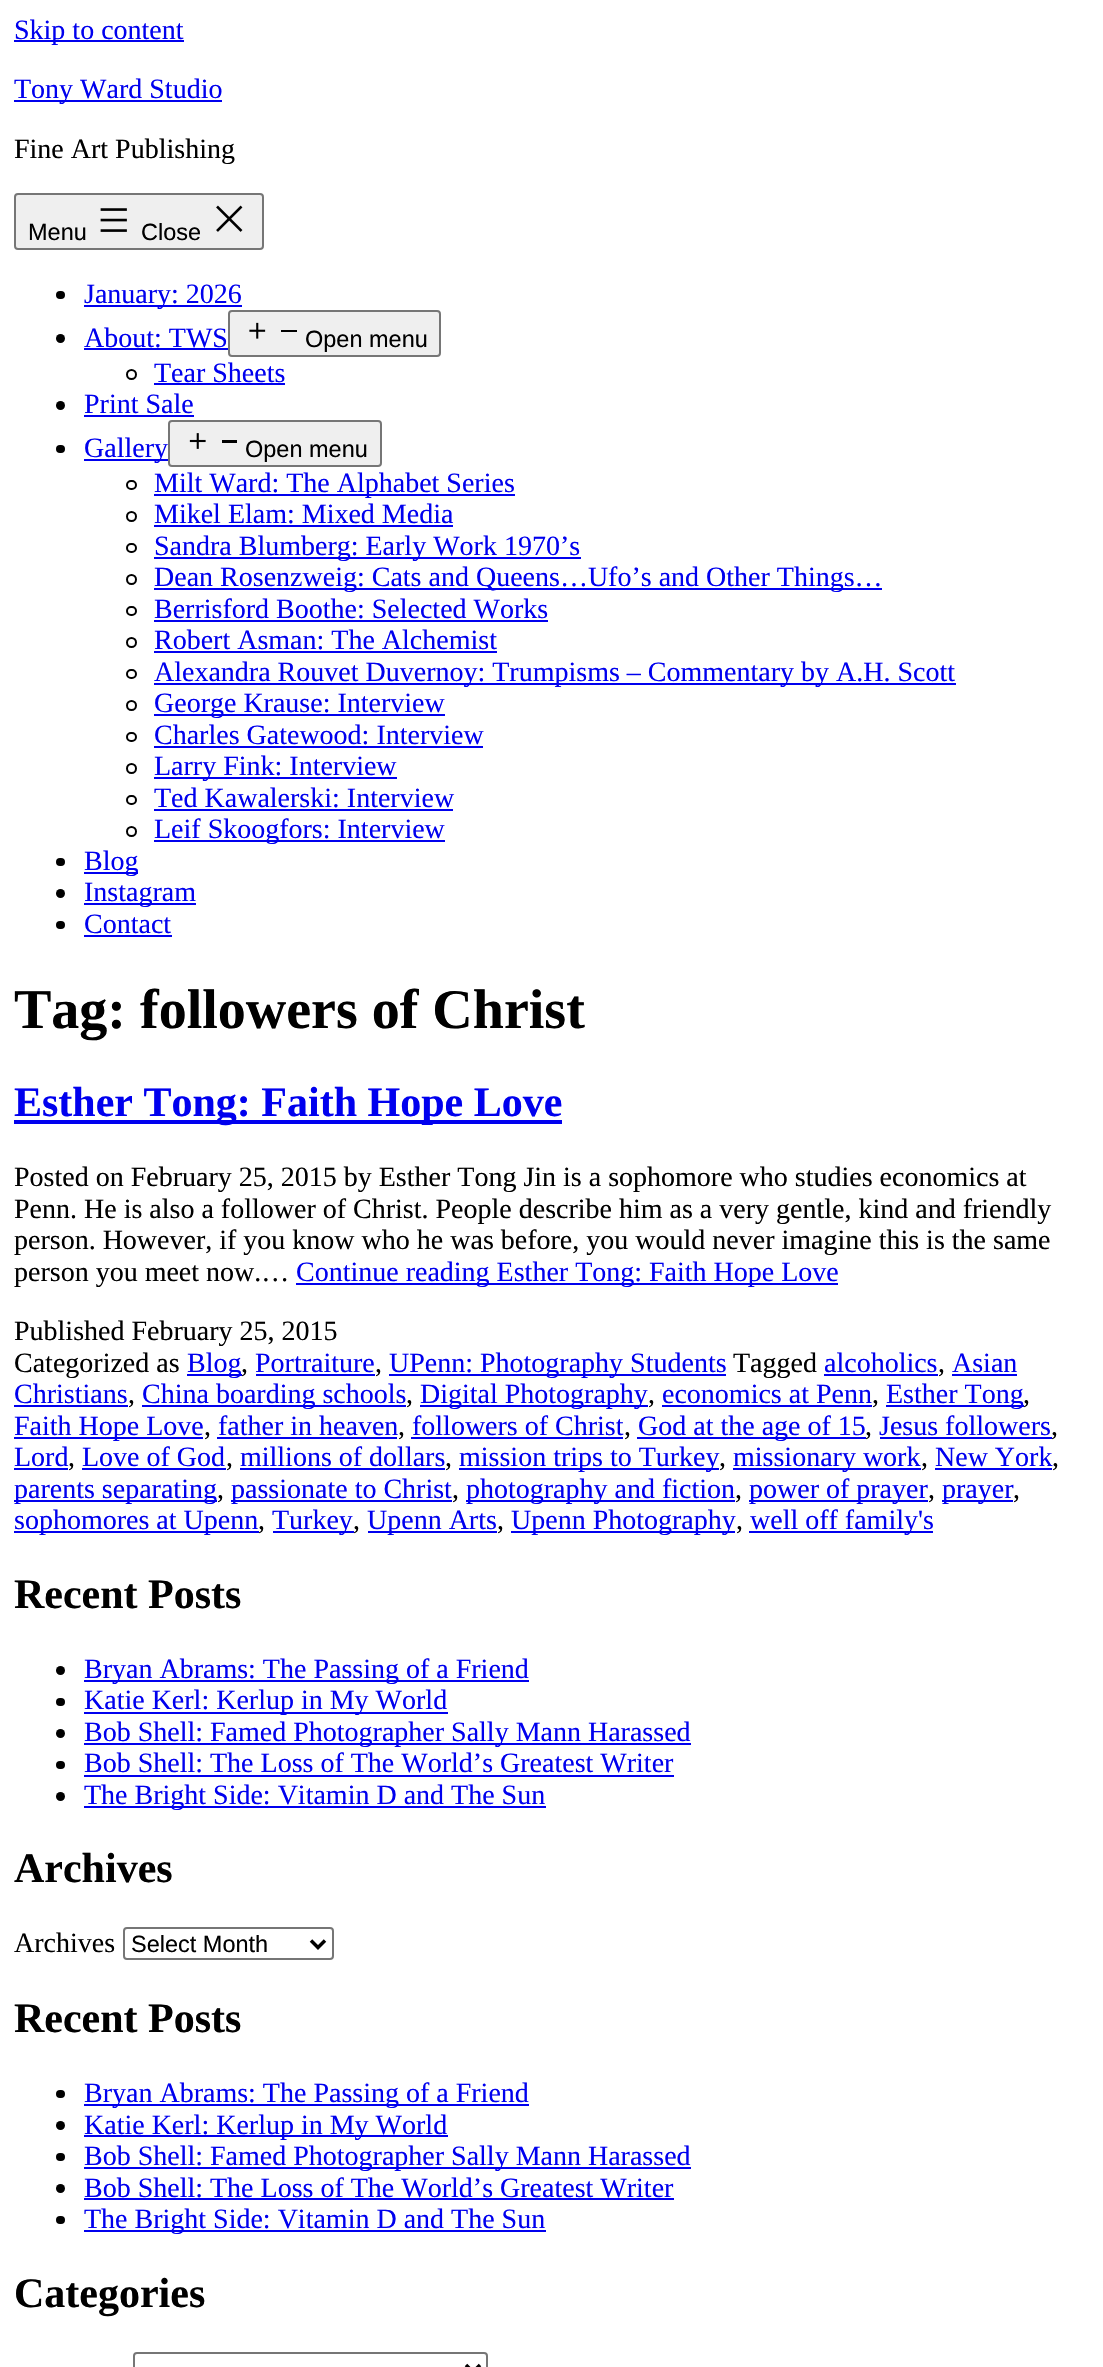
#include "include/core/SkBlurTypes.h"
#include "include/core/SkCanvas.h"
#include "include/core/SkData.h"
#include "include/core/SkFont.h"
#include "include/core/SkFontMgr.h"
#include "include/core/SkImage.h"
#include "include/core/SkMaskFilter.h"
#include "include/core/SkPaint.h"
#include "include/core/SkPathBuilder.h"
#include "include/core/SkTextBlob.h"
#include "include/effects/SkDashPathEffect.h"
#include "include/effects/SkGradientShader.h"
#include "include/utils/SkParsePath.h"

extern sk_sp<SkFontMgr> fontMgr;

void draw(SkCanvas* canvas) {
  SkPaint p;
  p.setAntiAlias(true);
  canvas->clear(SK_ColorWHITE);
  p.setColor(SkColorSetRGB(0, 0, 238));
  canvas->drawRect(SkRect::MakeLTRB(14, 40, 184, 42), p);
  canvas->drawRect(SkRect::MakeLTRB(14, 100, 222, 102), p);
  p.setColor(SkColorSetRGB(239, 239, 239));
  canvas->drawRoundRect(SkRect::MakeLTRB(15, 194, 263, 249), 3, 3, p);
  p.setStyle(SkPaint::kStroke_Style);
  p.setStrokeWidth(2);
  p.setColor(SkColorSetRGB(118, 118, 118));
  canvas->drawRoundRect(SkRect::MakeLTRB(15, 194, 263, 249), 3, 3, p);
  canvas->drawImageRect(SkImages::DeferredFromEncodedData(SkData::MakeFromFileName("images/1.png")), SkRect::MakeLTRB(100, 208, 127, 232), SkSamplingOptions());
  canvas->drawImageRect(SkImages::DeferredFromEncodedData(SkData::MakeFromFileName("images/2.png")), SkRect::MakeLTRB(216, 205, 243, 232), SkSamplingOptions());
  p.setStyle(SkPaint::kFill_Style);
  p.setColor(SK_ColorBLACK);
  canvas->drawRoundRect(SkRect::MakeLTRB(56, 291, 65, 299), 4, 4, p);
  p.setColor(SkColorSetRGB(0, 0, 238));
  canvas->drawRect(SkRect::MakeLTRB(84, 305, 242, 307), p);
  p.setColor(SK_ColorBLACK);
  canvas->drawCircle(60.5f, 338.5f, 4.5f, p);
  p.setColor(SkColorSetRGB(0, 0, 238));
  canvas->drawRect(SkRect::MakeLTRB(84, 348, 228, 350), p);
  p.setColor(SkColorSetRGB(239, 239, 239));
  canvas->drawRoundRect(SkRect::MakeLTRB(229, 311, 440, 356), 3, 3, p);
  p.setStyle(SkPaint::kStroke_Style);
  p.setColor(SkColorSetRGB(118, 118, 118));
  canvas->drawRoundRect(SkRect::MakeLTRB(229, 311, 440, 356), 3, 3, p);
  canvas->drawImageRect(SkImages::DeferredFromEncodedData(SkData::MakeFromFileName("images/3.png")), SkRect::MakeLTRB(249, 322, 266, 339), SkSamplingOptions());
  p.setStyle(SkPaint::kFill_Style);
  p.setColor(SK_ColorBLACK);
  canvas->drawRect(SkRect::MakeLTRB(281, 330, 297, 332), p);
  p.setStyle(SkPaint::kStroke_Style);
  canvas->drawCircle(131.5f, 374.5f, 4.5f, p);
  p.setStyle(SkPaint::kFill_Style);
  p.setColor(SkColorSetRGB(0, 0, 238));
  canvas->drawRect(SkRect::MakeLTRB(154, 383, 285, 385), p);
  p.setColor(SK_ColorBLACK);
  canvas->drawCircle(60.5f, 405.5f, 4.5f, p);
  p.setColor(SkColorSetRGB(0, 0, 238));
  canvas->drawRect(SkRect::MakeLTRB(84, 415, 194, 417), p);
  p.setColor(SK_ColorBLACK);
  canvas->drawRoundRect(SkRect::MakeLTRB(56, 445, 65, 453), 4, 4, p);
  p.setColor(SkColorSetRGB(0, 0, 238));
  canvas->drawRect(SkRect::MakeLTRB(84, 459, 168, 461), p);
  p.setColor(SkColorSetRGB(239, 239, 239));
  canvas->drawRoundRect(SkRect::MakeLTRB(169, 421, 381, 466), 3, 3, p);
  p.setStyle(SkPaint::kStroke_Style);
  p.setColor(SkColorSetRGB(118, 118, 118));
  canvas->drawRoundRect(SkRect::MakeLTRB(169, 421, 381, 466), 3, 3, p);
  canvas->drawImageRect(SkImages::DeferredFromEncodedData(SkData::MakeFromFileName("images/4.png")), SkRect::MakeLTRB(189, 433, 206, 449), SkSamplingOptions());
  p.setStyle(SkPaint::kFill_Style);
  p.setColor(SK_ColorBLACK);
  canvas->drawRect(SkRect::MakeLTRB(222, 440, 237, 443), p);
  p.setStyle(SkPaint::kStroke_Style);
  canvas->drawRoundRect(SkRect::MakeLTRB(127, 481, 136, 489), 4, 4, p);
  p.setStyle(SkPaint::kFill_Style);
  p.setColor(SkColorSetRGB(0, 0, 238));
  canvas->drawRect(SkRect::MakeLTRB(154, 494, 515, 496), p);
  p.setStyle(SkPaint::kStroke_Style);
  p.setColor(SK_ColorBLACK);
  canvas->drawCircle(131.5f, 516.5f, 4.5f, p);
  p.setStyle(SkPaint::kFill_Style);
  p.setColor(SkColorSetRGB(0, 0, 238));
  canvas->drawRect(SkRect::MakeLTRB(154, 525, 453, 527), p);
  p.setStyle(SkPaint::kStroke_Style);
  p.setColor(SK_ColorBLACK);
  canvas->drawRoundRect(SkRect::MakeLTRB(127, 544, 136, 552), 4, 4, p);
  p.setStyle(SkPaint::kFill_Style);
  p.setColor(SkColorSetRGB(0, 0, 238));
  canvas->drawRect(SkRect::MakeLTRB(154, 557, 581, 559), p);
  p.setStyle(SkPaint::kStroke_Style);
  p.setColor(SK_ColorBLACK);
  canvas->drawCircle(131.5f, 579.5f, 4.5f, p);
  p.setStyle(SkPaint::kFill_Style);
  p.setColor(SkColorSetRGB(0, 0, 238));
  canvas->drawRect(SkRect::MakeLTRB(154, 588, 882, 590), p);
  p.setStyle(SkPaint::kStroke_Style);
  p.setColor(SK_ColorBLACK);
  canvas->drawRoundRect(SkRect::MakeLTRB(127, 607, 136, 615), 4, 4, p);
  p.setStyle(SkPaint::kFill_Style);
  p.setColor(SkColorSetRGB(0, 0, 238));
  canvas->drawRect(SkRect::MakeLTRB(154, 620, 548, 622), p);
  p.setStyle(SkPaint::kStroke_Style);
  p.setColor(SK_ColorBLACK);
  canvas->drawCircle(131.5f, 642.5f, 4.5f, p);
  p.setStyle(SkPaint::kFill_Style);
  p.setColor(SkColorSetRGB(0, 0, 238));
  canvas->drawRect(SkRect::MakeLTRB(154, 651, 497, 653), p);
  p.setStyle(SkPaint::kStroke_Style);
  p.setColor(SK_ColorBLACK);
  canvas->drawRoundRect(SkRect::MakeLTRB(127, 670, 136, 678), 4, 4, p);
  p.setStyle(SkPaint::kFill_Style);
  p.setColor(SkColorSetRGB(0, 0, 238));
  canvas->drawRect(SkRect::MakeLTRB(154, 683, 956, 685), p);
  p.setStyle(SkPaint::kStroke_Style);
  p.setColor(SK_ColorBLACK);
  canvas->drawCircle(131.5f, 705.5f, 4.5f, p);
  p.setStyle(SkPaint::kFill_Style);
  p.setColor(SkColorSetRGB(0, 0, 238));
  canvas->drawRect(SkRect::MakeLTRB(154, 714, 445, 716), p);
  p.setStyle(SkPaint::kStroke_Style);
  p.setColor(SK_ColorBLACK);
  canvas->drawRoundRect(SkRect::MakeLTRB(127, 733, 136, 741), 4, 4, p);
  p.setStyle(SkPaint::kFill_Style);
  p.setColor(SkColorSetRGB(0, 0, 238));
  canvas->drawRect(SkRect::MakeLTRB(154, 746, 483, 748), p);
  p.setStyle(SkPaint::kStroke_Style);
  p.setColor(SK_ColorBLACK);
  canvas->drawCircle(131.5f, 768.5f, 4.5f, p);
  p.setStyle(SkPaint::kFill_Style);
  p.setColor(SkColorSetRGB(0, 0, 238));
  canvas->drawRect(SkRect::MakeLTRB(154, 777, 397, 779), p);
  p.setStyle(SkPaint::kStroke_Style);
  p.setColor(SK_ColorBLACK);
  canvas->drawRoundRect(SkRect::MakeLTRB(127, 796, 136, 804), 4, 4, p);
  p.setStyle(SkPaint::kFill_Style);
  p.setColor(SkColorSetRGB(0, 0, 238));
  canvas->drawRect(SkRect::MakeLTRB(154, 809, 453, 811), p);
  p.setStyle(SkPaint::kStroke_Style);
  p.setColor(SK_ColorBLACK);
  canvas->drawCircle(131.5f, 831.5f, 4.5f, p);
  p.setStyle(SkPaint::kFill_Style);
  p.setColor(SkColorSetRGB(0, 0, 238));
  canvas->drawRect(SkRect::MakeLTRB(154, 840, 445, 842), p);
  p.setColor(SK_ColorBLACK);
  canvas->drawRoundRect(SkRect::MakeLTRB(56, 858, 65, 866), 4, 4, p);
  p.setColor(SkColorSetRGB(0, 0, 238));
  canvas->drawRect(SkRect::MakeLTRB(84, 872, 138, 874), p);
  p.setColor(SK_ColorBLACK);
  canvas->drawCircle(60.5f, 893.5f, 4.5f, p);
  p.setColor(SkColorSetRGB(0, 0, 238));
  canvas->drawRect(SkRect::MakeLTRB(84, 903, 196, 905), p);
  p.setColor(SK_ColorBLACK);
  canvas->drawRoundRect(SkRect::MakeLTRB(56, 921, 65, 929), 4, 4, p);
  p.setColor(SkColorSetRGB(0, 0, 238));
  canvas->drawRect(SkRect::MakeLTRB(84, 935, 172, 937), p);
  canvas->drawRect(SkRect::MakeLTRB(14, 1120, 562, 1124), p);
  canvas->drawRect(SkRect::MakeLTRB(296, 1283, 838, 1285), p);
  canvas->drawRect(SkRect::MakeLTRB(187, 1374, 242, 1376), p);
  canvas->drawRect(SkRect::MakeLTRB(256, 1374, 375, 1376), p);
  canvas->drawRect(SkRect::MakeLTRB(389, 1374, 726, 1376), p);
  canvas->drawRect(SkRect::MakeLTRB(824, 1374, 938, 1376), p);
  canvas->drawRect(SkRect::MakeLTRB(952, 1374, 1017, 1376), p);
  canvas->drawRect(SkRect::MakeLTRB(14, 1405, 128, 1407), p);
  canvas->drawRect(SkRect::MakeLTRB(142, 1405, 406, 1407), p);
  canvas->drawRect(SkRect::MakeLTRB(420, 1405, 648, 1407), p);
  canvas->drawRect(SkRect::MakeLTRB(662, 1405, 872, 1407), p);
  canvas->drawRect(SkRect::MakeLTRB(886, 1405, 1024, 1407), p);
  canvas->drawRect(SkRect::MakeLTRB(14, 1437, 203, 1439), p);
  canvas->drawRect(SkRect::MakeLTRB(217, 1437, 397, 1439), p);
  canvas->drawRect(SkRect::MakeLTRB(411, 1437, 623, 1439), p);
  canvas->drawRect(SkRect::MakeLTRB(637, 1437, 866, 1439), p);
  canvas->drawRect(SkRect::MakeLTRB(880, 1437, 1052, 1439), p);
  canvas->drawRect(SkRect::MakeLTRB(14, 1468, 68, 1470), p);
  canvas->drawRect(SkRect::MakeLTRB(82, 1468, 226, 1470), p);
  canvas->drawRect(SkRect::MakeLTRB(240, 1468, 445, 1470), p);
  canvas->drawRect(SkRect::MakeLTRB(459, 1468, 719, 1470), p);
  canvas->drawRect(SkRect::MakeLTRB(733, 1468, 921, 1470), p);
  canvas->drawRect(SkRect::MakeLTRB(935, 1468, 1052, 1470), p);
  canvas->drawRect(SkRect::MakeLTRB(14, 1500, 217, 1502), p);
  canvas->drawRect(SkRect::MakeLTRB(231, 1500, 452, 1502), p);
  canvas->drawRect(SkRect::MakeLTRB(466, 1500, 735, 1502), p);
  canvas->drawRect(SkRect::MakeLTRB(749, 1500, 928, 1502), p);
  canvas->drawRect(SkRect::MakeLTRB(942, 1500, 1013, 1502), p);
  canvas->drawRect(SkRect::MakeLTRB(14, 1531, 259, 1533), p);
  canvas->drawRect(SkRect::MakeLTRB(273, 1531, 354, 1533), p);
  canvas->drawRect(SkRect::MakeLTRB(368, 1531, 497, 1533), p);
  canvas->drawRect(SkRect::MakeLTRB(511, 1531, 735, 1533), p);
  canvas->drawRect(SkRect::MakeLTRB(749, 1531, 933, 1533), p);
  p.setColor(SK_ColorBLACK);
  canvas->drawCircle(60.5f, 1670.5f, 4.5f, p);
  p.setColor(SkColorSetRGB(0, 0, 238));
  canvas->drawRect(SkRect::MakeLTRB(84, 1680, 529, 1682), p);
  p.setColor(SK_ColorBLACK);
  canvas->drawRoundRect(SkRect::MakeLTRB(56, 1698, 65, 1706), 4, 4, p);
  p.setColor(SkColorSetRGB(0, 0, 238));
  canvas->drawRect(SkRect::MakeLTRB(84, 1712, 448, 1714), p);
  p.setColor(SK_ColorBLACK);
  canvas->drawCircle(60.5f, 1733.5f, 4.5f, p);
  p.setColor(SkColorSetRGB(0, 0, 238));
  canvas->drawRect(SkRect::MakeLTRB(84, 1743, 691, 1745), p);
  p.setColor(SK_ColorBLACK);
  canvas->drawRoundRect(SkRect::MakeLTRB(56, 1761, 65, 1769), 4, 4, p);
  p.setColor(SkColorSetRGB(0, 0, 238));
  canvas->drawRect(SkRect::MakeLTRB(84, 1775, 674, 1777), p);
  p.setColor(SK_ColorBLACK);
  canvas->drawCircle(60.5f, 1796.5f, 4.5f, p);
  p.setColor(SkColorSetRGB(0, 0, 238));
  canvas->drawRect(SkRect::MakeLTRB(84, 1806, 546, 1808), p);
  p.setStyle(SkPaint::kStroke_Style);
  p.setColor(SkColorSetRGB(118, 118, 118));
  canvas->drawRoundRect(SkRect::MakeLTRB(124, 1928, 333, 1959), 3, 3, p);
  p.setStrokeWidth(3.5f);
  p.setColor(SK_ColorBLACK);
  canvas->drawPath(SkPathBuilder().moveTo(311, 1940.5f).lineTo(318, 1947.5f).lineTo(325, 1940.5f).detach(), p);
  p.setStyle(SkPaint::kFill_Style);
  canvas->drawRoundRect(SkRect::MakeLTRB(56, 2090, 65, 2098), 4, 4, p);
  p.setColor(SkColorSetRGB(0, 0, 238));
  canvas->drawRect(SkRect::MakeLTRB(84, 2104, 529, 2106), p);
  p.setColor(SK_ColorBLACK);
  canvas->drawCircle(60.5f, 2125.5f, 4.5f, p);
  p.setColor(SkColorSetRGB(0, 0, 238));
  canvas->drawRect(SkRect::MakeLTRB(84, 2135, 448, 2137), p);
  p.setColor(SK_ColorBLACK);
  canvas->drawRoundRect(SkRect::MakeLTRB(56, 2153, 65, 2161), 4, 4, p);
  p.setColor(SkColorSetRGB(0, 0, 238));
  canvas->drawRect(SkRect::MakeLTRB(84, 2167, 691, 2169), p);
  p.setColor(SK_ColorBLACK);
  canvas->drawCircle(60.5f, 2188.5f, 4.5f, p);
  p.setColor(SkColorSetRGB(0, 0, 238));
  canvas->drawRect(SkRect::MakeLTRB(84, 2198, 674, 2200), p);
  p.setColor(SK_ColorBLACK);
  canvas->drawRoundRect(SkRect::MakeLTRB(56, 2216, 65, 2224), 4, 4, p);
  p.setColor(SkColorSetRGB(0, 0, 238));
  canvas->drawRect(SkRect::MakeLTRB(84, 2230, 546, 2232), p);
  p.setStyle(SkPaint::kStroke_Style);
  p.setStrokeWidth(2);
  p.setColor(SkColorSetRGB(118, 118, 118));
  canvas->drawRoundRect(SkRect::MakeLTRB(134, 2353, 487, 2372), 3, 3, p);
  p.setStrokeWidth(3.5f);
  p.setColor(SK_ColorBLACK);
  canvas->drawPath(SkPathBuilder().moveTo(466, 2365).lineTo(473, 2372).lineTo(480, 2365).detach(), p);
  SkFont font1(fontMgr->matchFamilyStyle("Liberation Serif", SkFontStyle::Normal()), 28);
  font1.setSubpixel(true);
  p.setStyle(SkPaint::kFill_Style);
  p.setColor(SkColorSetRGB(0, 0, 238));
  canvas->drawString("Skip to content", 14, 39, font1, p);
  canvas->drawString("Tony Ward Studio", 14, 98, font1, p);
  p.setColor(SK_ColorBLACK);
  canvas->drawString("Fine Art Publishing", 14, 158, font1, p);
  SkFont font2(fontMgr->matchFamilyStyle("Liberation Sans", SkFontStyle::Normal()), 23.5f);
  font2.setSubpixel(true);
  canvas->drawString("Menu", 28, 240, font2, p);
  canvas->drawString("Close", 141, 240, font2, p);
  p.setColor(SkColorSetRGB(0, 0, 238));
  canvas->drawString("January: 2026", 84, 303, font1, p);
  canvas->drawString("About: TWS", 84, 347, font1, p);
  p.setColor(SK_ColorBLACK);
  canvas->drawString("Open menu", 305, 347, font2, p);
  p.setColor(SkColorSetRGB(0, 0, 238));
  canvas->drawString("Tear Sheets", 154, 382, font1, p);
  canvas->drawString("Print Sale", 84, 413, font1, p);
  canvas->drawString("Gallery", 84, 457, font1, p);
  p.setColor(SK_ColorBLACK);
  canvas->drawString("Open menu", 245, 457, font2, p);
  p.setColor(SkColorSetRGB(0, 0, 238));
  canvas->drawString("Milt Ward: The Alphabet Series", 154, 492, font1, p);
  canvas->drawString("Mikel Elam: Mixed Media", 154, 523, font1, p);
  canvas->drawString("Sandra Blumberg: Early Work 1970’s", 154, 555, font1, p);
  canvas->drawString("Dean Rosenzweig: Cats and Queens…Ufo’s and Other Things…", 154, 586, font1, p);
  canvas->drawString("Berrisford Boothe: Selected Works", 154, 618, font1, p);
  canvas->drawString("Robert Asman: The Alchemist", 154, 649, font1, p);
  canvas->drawString("Alexandra Rouvet Duvernoy: Trumpisms – Commentary by A.H. Scott", 154, 681, font1, p);
  canvas->drawString("George Krause: Interview", 154, 712, font1, p);
  canvas->drawString("Charles Gatewood: Interview", 154, 744, font1, p);
  canvas->drawString("Larry Fink: Interview", 154, 775, font1, p);
  canvas->drawString("Ted Kawalerski: Interview", 154, 807, font1, p);
  canvas->drawString("Leif Skoogfors: Interview", 154, 838, font1, p);
  canvas->drawString("Blog", 84, 870, font1, p);
  canvas->drawString("Instagram", 84, 901, font1, p);
  canvas->drawString("Contact", 84, 933, font1, p);
  SkFont font3(fontMgr->matchFamilyStyle("Liberation Serif", SkFontStyle::Bold()), 56);
  font3.setSubpixel(true);
  p.setColor(SK_ColorBLACK);
  canvas->drawString("Tag: followers of Christ", 14, 1028, font3, p);
  SkFont font4(fontMgr->matchFamilyStyle("Liberation Serif", SkFontStyle::Bold()), 42);
  font4.setSubpixel(true);
  p.setColor(SkColorSetRGB(0, 0, 238));
  canvas->drawString("Esther Tong: Faith Hope Love", 14, 1116, font4, p);
  p.setColor(SK_ColorBLACK);
  canvas->drawString("Posted on February 25, 2015 by Esther Tong Jin is a sophomore who studies economics at", 14, 1186, font1, p);
  canvas->drawString("Penn. He is also a follower of Christ. People describe him as a very gentle, kind and friendly", 14, 1218, font1, p);
  canvas->drawString("person. However, if you know who he was before, you would never imagine this is the same", 14, 1249, font1, p);
  canvas->drawString("person you meet now.…", 14, 1281, font1, p);
  p.setColor(SkColorSetRGB(0, 0, 238));
  canvas->drawString("Continue reading Esther Tong: Faith Hope Love", 296, 1281, font1, p);
  p.setColor(SK_ColorBLACK);
  canvas->drawString("Published February 25, 2015", 14, 1340, font1, p);
  canvas->drawString("Categorized as", 14, 1372, font1, p);
  p.setColor(SkColorSetRGB(0, 0, 238));
  canvas->drawString("Blog", 187, 1372, font1, p);
  p.setColor(SK_ColorBLACK);
  canvas->drawString(",", 241, 1372, font1, p);
  p.setColor(SkColorSetRGB(0, 0, 238));
  canvas->drawString("Portraiture", 255, 1372, font1, p);
  p.setColor(SK_ColorBLACK);
  canvas->drawString(",", 375, 1372, font1, p);
  p.setColor(SkColorSetRGB(0, 0, 238));
  canvas->drawString("UPenn: Photography Students", 389, 1372, font1, p);
  p.setColor(SK_ColorBLACK);
  canvas->drawString("Tagged", 733, 1372, font1, p);
  p.setColor(SkColorSetRGB(0, 0, 238));
  canvas->drawString("alcoholics", 824, 1372, font1, p);
  p.setColor(SK_ColorBLACK);
  canvas->drawString(",", 938, 1372, font1, p);
  p.setColor(SkColorSetRGB(0, 0, 238));
  canvas->drawString("Asian", 952, 1372, font1, p);
  canvas->drawString("Christians", 14, 1403, font1, p);
  p.setColor(SK_ColorBLACK);
  canvas->drawString(",", 128, 1403, font1, p);
  p.setColor(SkColorSetRGB(0, 0, 238));
  canvas->drawString("China boarding schools", 142, 1403, font1, p);
  p.setColor(SK_ColorBLACK);
  canvas->drawString(",", 406, 1403, font1, p);
  p.setColor(SkColorSetRGB(0, 0, 238));
  canvas->drawString("Digital Photography", 420, 1403, font1, p);
  p.setColor(SK_ColorBLACK);
  canvas->drawString(",", 648, 1403, font1, p);
  p.setColor(SkColorSetRGB(0, 0, 238));
  canvas->drawString("economics at Penn", 662, 1403, font1, p);
  p.setColor(SK_ColorBLACK);
  canvas->drawString(",", 872, 1403, font1, p);
  p.setColor(SkColorSetRGB(0, 0, 238));
  canvas->drawString("Esther Tong", 886, 1403, font1, p);
  p.setColor(SK_ColorBLACK);
  canvas->drawString(",", 1023, 1403, font1, p);
  p.setColor(SkColorSetRGB(0, 0, 238));
  canvas->drawString("Faith Hope Love", 14, 1435, font1, p);
  p.setColor(SK_ColorBLACK);
  canvas->drawString(",", 204, 1435, font1, p);
  p.setColor(SkColorSetRGB(0, 0, 238));
  canvas->drawString("father in heaven", 218, 1435, font1, p);
  p.setColor(SK_ColorBLACK);
  canvas->drawString(",", 398, 1435, font1, p);
  p.setColor(SkColorSetRGB(0, 0, 238));
  canvas->drawString("followers of Christ", 412, 1435, font1, p);
  p.setColor(SK_ColorBLACK);
  canvas->drawString(",", 624, 1435, font1, p);
  p.setColor(SkColorSetRGB(0, 0, 238));
  canvas->drawString("God at the age of 15", 638, 1435, font1, p);
  p.setColor(SK_ColorBLACK);
  canvas->drawString(",", 865, 1435, font1, p);
  p.setColor(SkColorSetRGB(0, 0, 238));
  canvas->drawString("Jesus followers", 879, 1435, font1, p);
  p.setColor(SK_ColorBLACK);
  canvas->drawString(",", 1051, 1435, font1, p);
  p.setColor(SkColorSetRGB(0, 0, 238));
  canvas->drawString("Lord", 14, 1466, font1, p);
  p.setColor(SK_ColorBLACK);
  canvas->drawString(",", 68, 1466, font1, p);
  p.setColor(SkColorSetRGB(0, 0, 238));
  canvas->drawString("Love of God", 82, 1466, font1, p);
  p.setColor(SK_ColorBLACK);
  canvas->drawString(",", 226, 1466, font1, p);
  p.setColor(SkColorSetRGB(0, 0, 238));
  canvas->drawString("millions of dollars", 240, 1466, font1, p);
  p.setColor(SK_ColorBLACK);
  canvas->drawString(",", 445, 1466, font1, p);
  p.setColor(SkColorSetRGB(0, 0, 238));
  canvas->drawString("mission trips to Turkey", 459, 1466, font1, p);
  p.setColor(SK_ColorBLACK);
  canvas->drawString(",", 719, 1466, font1, p);
  p.setColor(SkColorSetRGB(0, 0, 238));
  canvas->drawString("missionary work", 733, 1466, font1, p);
  p.setColor(SK_ColorBLACK);
  canvas->drawString(",", 921, 1466, font1, p);
  p.setColor(SkColorSetRGB(0, 0, 238));
  canvas->drawString("New York", 935, 1466, font1, p);
  p.setColor(SK_ColorBLACK);
  canvas->drawString(",", 1052, 1466, font1, p);
  p.setColor(SkColorSetRGB(0, 0, 238));
  canvas->drawString("parents separating", 14, 1498, font1, p);
  p.setColor(SK_ColorBLACK);
  canvas->drawString(",", 217, 1498, font1, p);
  p.setColor(SkColorSetRGB(0, 0, 238));
  canvas->drawString("passionate to Christ", 231, 1498, font1, p);
  p.setColor(SK_ColorBLACK);
  canvas->drawString(",", 452, 1498, font1, p);
  p.setColor(SkColorSetRGB(0, 0, 238));
  canvas->drawString("photography and fiction", 466, 1498, font1, p);
  p.setColor(SK_ColorBLACK);
  canvas->drawString(",", 735, 1498, font1, p);
  p.setColor(SkColorSetRGB(0, 0, 238));
  canvas->drawString("power of prayer", 749, 1498, font1, p);
  p.setColor(SK_ColorBLACK);
  canvas->drawString(",", 928, 1498, font1, p);
  p.setColor(SkColorSetRGB(0, 0, 238));
  canvas->drawString("prayer", 942, 1498, font1, p);
  p.setColor(SK_ColorBLACK);
  canvas->drawString(",", 1013, 1498, font1, p);
  p.setColor(SkColorSetRGB(0, 0, 238));
  canvas->drawString("sophomores at Upenn", 14, 1529, font1, p);
  p.setColor(SK_ColorBLACK);
  canvas->drawString(",", 258, 1529, font1, p);
  p.setColor(SkColorSetRGB(0, 0, 238));
  canvas->drawString("Turkey", 272, 1529, font1, p);
  p.setColor(SK_ColorBLACK);
  canvas->drawString(",", 353, 1529, font1, p);
  p.setColor(SkColorSetRGB(0, 0, 238));
  canvas->drawString("Upenn Arts", 367, 1529, font1, p);
  p.setColor(SK_ColorBLACK);
  canvas->drawString(",", 497, 1529, font1, p);
  p.setColor(SkColorSetRGB(0, 0, 238));
  canvas->drawString("Upenn Photography", 511, 1529, font1, p);
  p.setColor(SK_ColorBLACK);
  canvas->drawString(",", 736, 1529, font1, p);
  p.setColor(SkColorSetRGB(0, 0, 238));
  canvas->drawString("well off family's", 750, 1529, font1, p);
  p.setColor(SK_ColorBLACK);
  canvas->drawString("Recent Posts", 14, 1608, font4, p);
  p.setColor(SkColorSetRGB(0, 0, 238));
  canvas->drawString("Bryan Abrams: The Passing of a Friend", 84, 1678, font1, p);
  canvas->drawString("Katie Kerl: Kerlup in My World", 84, 1709, font1, p);
  canvas->drawString("Bob Shell: Famed Photographer Sally Mann Harassed", 84, 1741, font1, p);
  canvas->drawString("Bob Shell: The Loss of The World’s Greatest Writer", 84, 1772, font1, p);
  canvas->drawString("The Bright Side: Vitamin D and The Sun", 84, 1804, font1, p);
  p.setColor(SK_ColorBLACK);
  canvas->drawString("Archives", 14, 1882, font4, p);
  canvas->drawString("Archives", 14, 1952, font1, p);
  canvas->drawString("Select Month", 131, 1952, font2, p);
  canvas->drawString("Recent Posts", 14, 2032, font4, p);
  p.setColor(SkColorSetRGB(0, 0, 238));
  canvas->drawString("Bryan Abrams: The Passing of a Friend", 84, 2102, font1, p);
  canvas->drawString("Katie Kerl: Kerlup in My World", 84, 2134, font1, p);
  canvas->drawString("Bob Shell: Famed Photographer Sally Mann Harassed", 84, 2165, font1, p);
  canvas->drawString("Bob Shell: The Loss of The World’s Greatest Writer", 84, 2197, font1, p);
  canvas->drawString("The Bright Side: Vitamin D and The Sun", 84, 2228, font1, p);
  p.setColor(SK_ColorBLACK);
  canvas->drawString("Categories", 14, 2307, font4, p);
}
